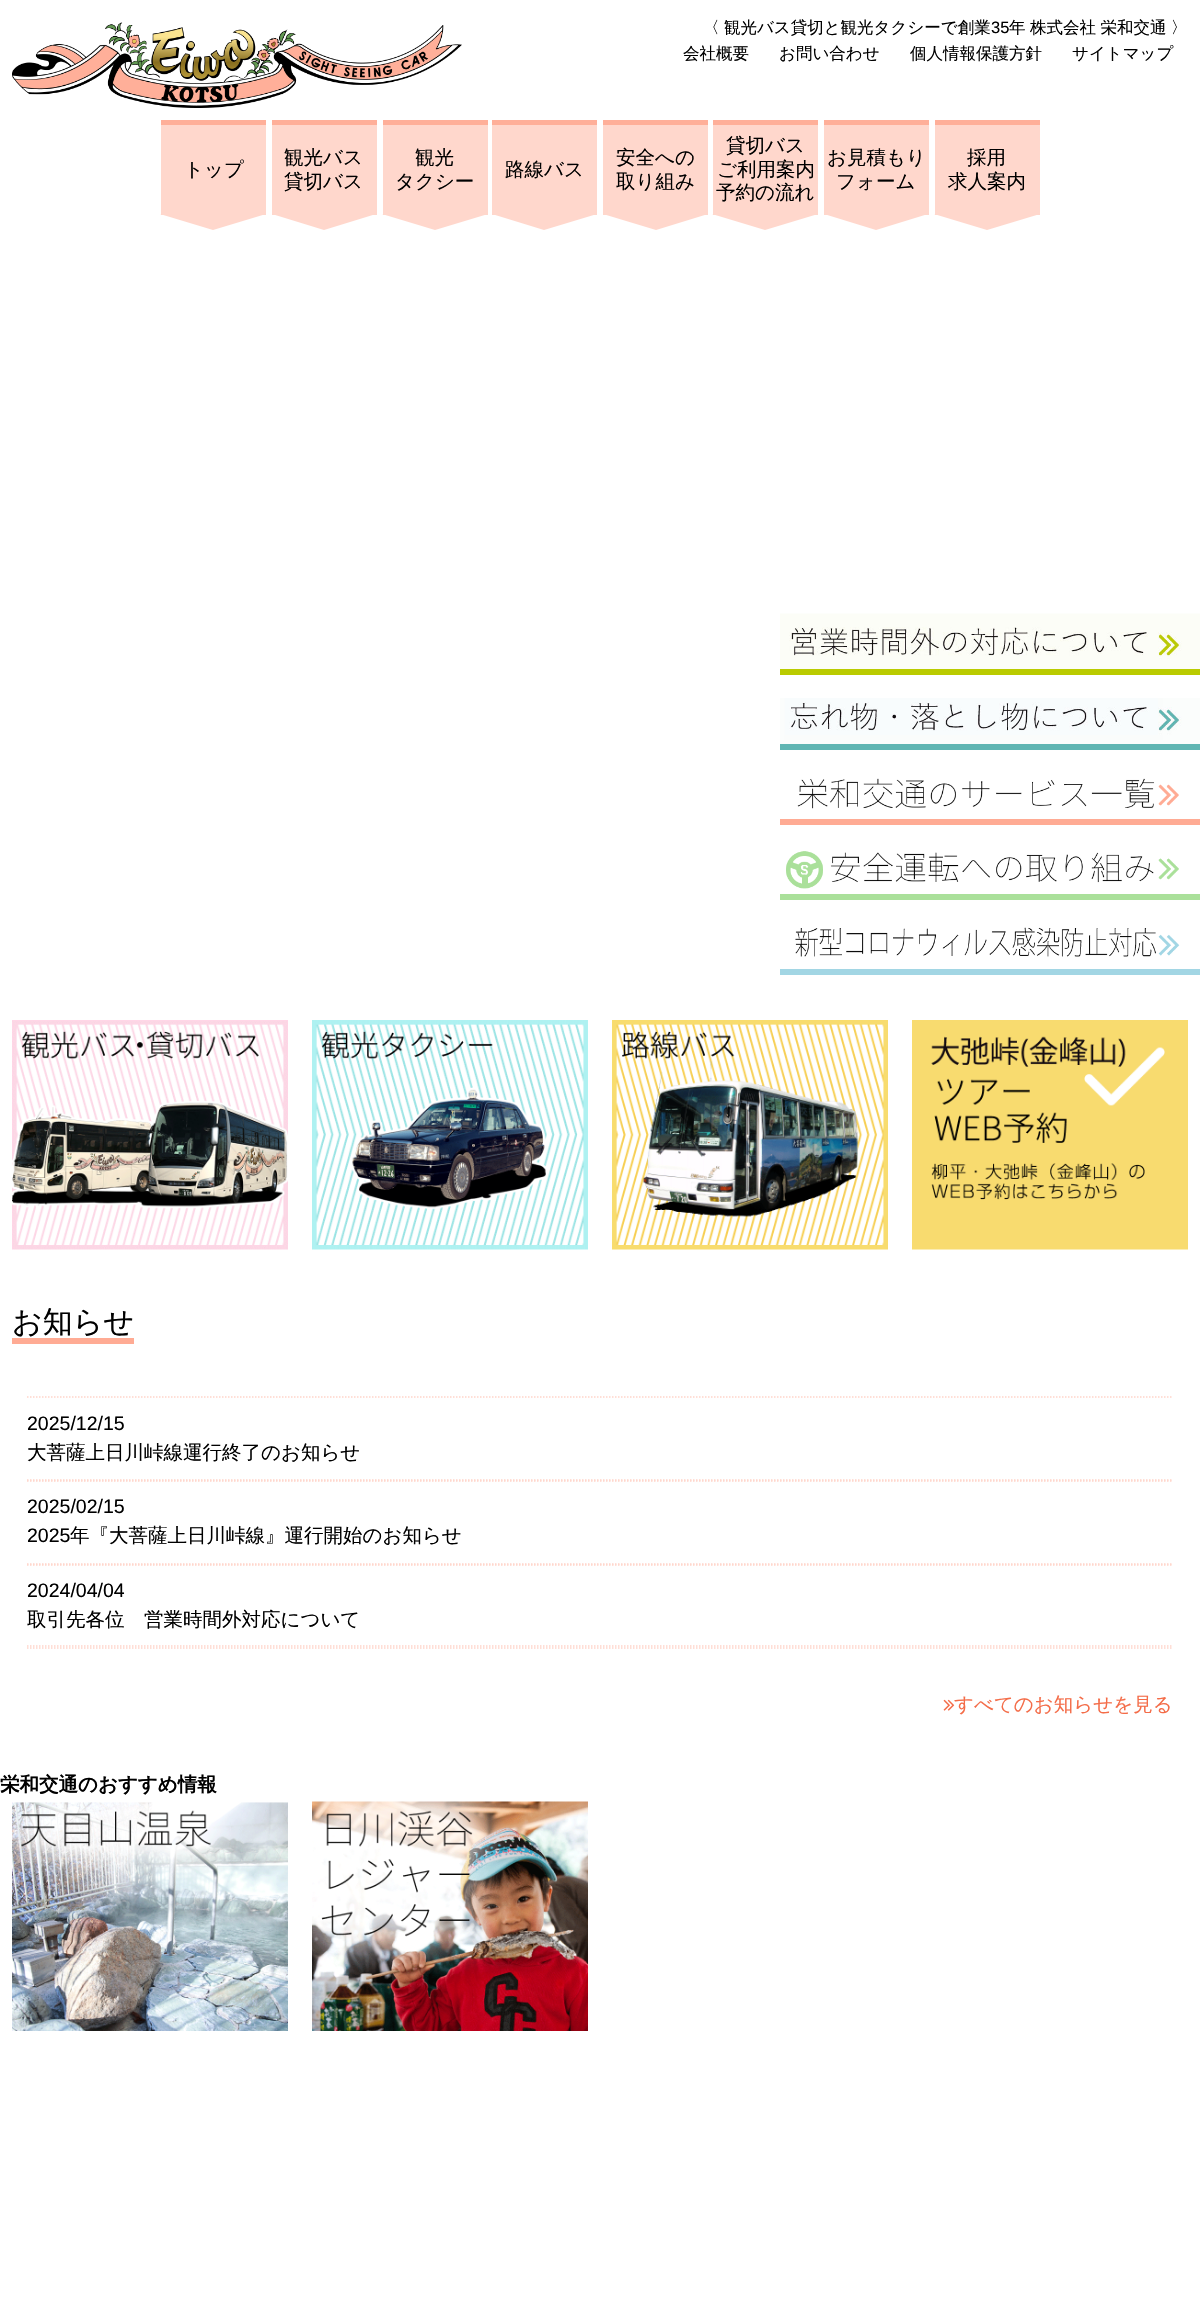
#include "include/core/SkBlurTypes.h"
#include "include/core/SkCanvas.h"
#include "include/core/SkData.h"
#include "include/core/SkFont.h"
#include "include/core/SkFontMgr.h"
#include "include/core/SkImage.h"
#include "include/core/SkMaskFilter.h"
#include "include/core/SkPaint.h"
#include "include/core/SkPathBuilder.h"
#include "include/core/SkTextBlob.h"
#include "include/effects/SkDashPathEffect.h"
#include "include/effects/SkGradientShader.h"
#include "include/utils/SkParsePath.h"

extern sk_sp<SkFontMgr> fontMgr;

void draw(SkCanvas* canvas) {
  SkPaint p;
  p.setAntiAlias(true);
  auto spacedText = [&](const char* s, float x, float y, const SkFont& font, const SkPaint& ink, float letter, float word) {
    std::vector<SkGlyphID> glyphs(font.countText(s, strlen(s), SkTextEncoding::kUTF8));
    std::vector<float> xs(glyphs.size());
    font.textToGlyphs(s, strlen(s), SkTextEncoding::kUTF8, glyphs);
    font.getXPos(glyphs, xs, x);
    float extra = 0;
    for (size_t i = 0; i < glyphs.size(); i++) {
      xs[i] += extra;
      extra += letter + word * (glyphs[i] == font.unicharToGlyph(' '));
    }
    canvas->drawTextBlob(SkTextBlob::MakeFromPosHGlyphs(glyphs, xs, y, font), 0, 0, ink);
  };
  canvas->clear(SK_ColorWHITE);
  p.setColor(SkColorSetRGB(255, 215, 204));
  canvas->drawRect(SkRect::MakeLTRB(161, 125, 266, 215), p);
  p.setColor(SkColorSetRGB(255, 175, 153));
  canvas->drawRect(SkRect::MakeLTRB(161, 120, 266, 125), p);
  p.setColor(SkColorSetRGB(255, 215, 204));
  canvas->drawPath(SkPathBuilder().moveTo(160, 214).lineTo(266, 214).lineTo(213, 230).close().detach(), p);
  canvas->drawRect(SkRect::MakeLTRB(272, 125, 377, 215), p);
  p.setColor(SkColorSetRGB(255, 175, 153));
  canvas->drawRect(SkRect::MakeLTRB(272, 120, 377, 125), p);
  p.setColor(SkColorSetRGB(255, 215, 204));
  canvas->drawPath(SkPathBuilder().moveTo(272, 214).lineTo(376, 214).lineTo(324, 230).close().detach(), p);
  canvas->drawRect(SkRect::MakeLTRB(383, 125, 488, 215), p);
  p.setColor(SkColorSetRGB(255, 175, 153));
  canvas->drawRect(SkRect::MakeLTRB(383, 120, 488, 125), p);
  p.setColor(SkColorSetRGB(255, 215, 204));
  canvas->drawPath(SkPathBuilder().moveTo(382, 214).lineTo(488, 214).lineTo(435, 230).close().detach(), p);
  canvas->drawRect(SkRect::MakeLTRB(492, 125, 597, 215), p);
  p.setColor(SkColorSetRGB(255, 175, 153));
  canvas->drawRect(SkRect::MakeLTRB(492, 120, 597, 125), p);
  p.setColor(SkColorSetRGB(255, 215, 204));
  canvas->drawPath(SkPathBuilder().moveTo(492, 214).lineTo(597, 214).lineTo(544, 230).close().detach(), p);
  canvas->drawRect(SkRect::MakeLTRB(603, 125, 708, 215), p);
  p.setColor(SkColorSetRGB(255, 175, 153));
  canvas->drawRect(SkRect::MakeLTRB(603, 120, 708, 125), p);
  p.setColor(SkColorSetRGB(255, 215, 204));
  canvas->drawPath(SkPathBuilder().moveTo(603, 214).lineTo(708, 214).lineTo(656, 230).close().detach(), p);
  canvas->drawRect(SkRect::MakeLTRB(713, 125, 818, 215), p);
  p.setColor(SkColorSetRGB(255, 175, 153));
  canvas->drawRect(SkRect::MakeLTRB(713, 120, 818, 125), p);
  p.setColor(SkColorSetRGB(255, 215, 204));
  canvas->drawPath(SkPathBuilder().moveTo(712, 214).lineTo(818, 214).lineTo(765, 230).close().detach(), p);
  canvas->drawRect(SkRect::MakeLTRB(824, 125, 929, 215), p);
  p.setColor(SkColorSetRGB(255, 175, 153));
  canvas->drawRect(SkRect::MakeLTRB(824, 120, 929, 125), p);
  p.setColor(SkColorSetRGB(255, 215, 204));
  canvas->drawPath(SkPathBuilder().moveTo(824, 214).lineTo(928, 214).lineTo(876, 230).close().detach(), p);
  canvas->drawRect(SkRect::MakeLTRB(935, 125, 1040, 215), p);
  p.setColor(SkColorSetRGB(255, 175, 153));
  canvas->drawRect(SkRect::MakeLTRB(935, 120, 1040, 125), p);
  p.setColor(SkColorSetRGB(255, 215, 204));
  canvas->drawPath(SkPathBuilder().moveTo(934, 214).lineTo(1040, 214).lineTo(987, 230).close().detach(), p);
  canvas->drawImageRect(SkImages::DeferredFromEncodedData(SkData::MakeFromFileName("images/1.png")), SkRect::MakeLTRB(12, 22, 462, 108), SkSamplingOptions());
  canvas->drawImageRect(SkImages::DeferredFromEncodedData(SkData::MakeFromFileName("images/2.png")), SkRect::MakeLTRB(780, 613, 1200, 675), SkSamplingOptions());
  canvas->drawImageRect(SkImages::DeferredFromEncodedData(SkData::MakeFromFileName("images/3.png")), SkRect::MakeLTRB(780, 698, 1200, 750), SkSamplingOptions());
  canvas->drawImageRect(SkImages::DeferredFromEncodedData(SkData::MakeFromFileName("images/4.png")), SkRect::MakeLTRB(780, 778, 1200, 825), SkSamplingOptions());
  canvas->drawImageRect(SkImages::DeferredFromEncodedData(SkData::MakeFromFileName("images/5.png")), SkRect::MakeLTRB(780, 851, 1200, 900), SkSamplingOptions());
  canvas->drawImageRect(SkImages::DeferredFromEncodedData(SkData::MakeFromFileName("images/6.png")), SkRect::MakeLTRB(780, 927, 1200, 975), SkSamplingOptions());
  canvas->drawImageRect(SkImages::DeferredFromEncodedData(SkData::MakeFromFileName("images/7.png")), SkRect::MakeLTRB(12, 1020, 288, 1250), SkSamplingOptions());
  canvas->drawImageRect(SkImages::DeferredFromEncodedData(SkData::MakeFromFileName("images/8.png")), SkRect::MakeLTRB(312, 1020, 588, 1250), SkSamplingOptions());
  canvas->drawImageRect(SkImages::DeferredFromEncodedData(SkData::MakeFromFileName("images/9.png")), SkRect::MakeLTRB(612, 1020, 888, 1250), SkSamplingOptions());
  canvas->drawImageRect(SkImages::DeferredFromEncodedData(SkData::MakeFromFileName("images/10.png")), SkRect::MakeLTRB(912, 1020, 1188, 1250), SkSamplingOptions());
  p.setColor(SkColorSetRGB(255, 171, 148));
  canvas->drawRect(SkRect::MakeLTRB(12, 1338, 134, 1344), p);
  p.setStyle(SkPaint::kStroke_Style);
  p.setStrokeWidth(1.5f);
  p.setColor(SkColorSetRGB(255, 213, 202));
  p.setPathEffect(SkDashPathEffect::Make({{1.5f, 1.5f}}, 0));
  canvas->drawPath(SkPathBuilder().moveTo(27, 1397).lineTo(1173, 1397).detach(), p);
  p.setPathEffect(nullptr);
  p.setPathEffect(SkDashPathEffect::Make({{1.5f, 1.5f}}, 0));
  canvas->drawPath(SkPathBuilder().moveTo(27, 1481).lineTo(1173, 1481).detach(), p);
  p.setPathEffect(nullptr);
  p.setPathEffect(SkDashPathEffect::Make({{1.5f, 1.5f}}, 0));
  canvas->drawPath(SkPathBuilder().moveTo(27, 1480).lineTo(1173, 1480).detach(), p);
  p.setPathEffect(nullptr);
  p.setPathEffect(SkDashPathEffect::Make({{1.5f, 1.5f}}, 0));
  canvas->drawPath(SkPathBuilder().moveTo(27, 1565).lineTo(1173, 1565).detach(), p);
  p.setPathEffect(nullptr);
  p.setPathEffect(SkDashPathEffect::Make({{1.5f, 1.5f}}, 0));
  canvas->drawPath(SkPathBuilder().moveTo(27, 1564).lineTo(1173, 1564).detach(), p);
  p.setPathEffect(nullptr);
  p.setPathEffect(SkDashPathEffect::Make({{1.5f, 1.5f}}, 0));
  canvas->drawPath(SkPathBuilder().moveTo(27, 1648).lineTo(1173, 1648).detach(), p);
  p.setPathEffect(nullptr);
  p.setPathEffect(SkDashPathEffect::Make({{1.5f, 1.5f}}, 0));
  canvas->drawPath(SkPathBuilder().moveTo(27, 1646).lineTo(1173, 1646).detach(), p);
  p.setPathEffect(nullptr);
  canvas->drawImageRect(SkImages::DeferredFromEncodedData(SkData::MakeFromFileName("images/11.png")), SkRect::MakeLTRB(943, 1699, 955, 1711), SkSamplingOptions());
  canvas->drawImageRect(SkImages::DeferredFromEncodedData(SkData::MakeFromFileName("images/12.png")), SkRect::MakeLTRB(12, 1802, 288, 2031), SkSamplingOptions());
  canvas->drawImageRect(SkImages::DeferredFromEncodedData(SkData::MakeFromFileName("images/13.png")), SkRect::MakeLTRB(312, 1801, 588, 2031), SkSamplingOptions());
  SkFont font1(fontMgr->matchFamilyStyle("WenQuanYi Zen Hei", SkFontStyle(500, SkFontStyle::kNormal_Width, SkFontStyle::kUpright_Slant)), 16.5f);
  font1.setSubpixel(true);
  p.setStyle(SkPaint::kFill_Style);
  p.setColor(SK_ColorBLACK);
  spacedText("〈 観光バス貸切と観光タクシーで創業", 703, 33, font1, p, 0, -0.5f);
  SkFont font2(fontMgr->matchFamilyStyle("Liberation Sans", SkFontStyle::Normal()), 16.5f);
  font2.setSubpixel(true);
  canvas->drawString("35", 991, 33, font2, p);
  spacedText("年 株式会社 栄和交通 〉", 1009, 33, font1, p, 0, -0.5f);
  canvas->drawString("会社概要", 683, 59, font1, p);
  canvas->drawString("お問い合わせ", 779, 59, font1, p);
  canvas->drawString("個人情報保護方針", 910, 59, font1, p);
  canvas->drawString("サイトマップ", 1072, 59, font1, p);
  SkFont font3(fontMgr->matchFamilyStyle("WenQuanYi Zen Hei", SkFontStyle(500, SkFontStyle::kNormal_Width, SkFontStyle::kUpright_Slant)), 19.5f);
  font3.setSubpixel(true);
  canvas->drawString("トップ", 184, 176, font3, p);
  canvas->drawString("観光バス", 284, 164, font3, p);
  canvas->drawString("貸切バス", 284, 188, font3, p);
  canvas->drawString("観光", 415, 164, font3, p);
  canvas->drawString("タクシー", 395, 188, font3, p);
  canvas->drawString("路線バス", 505, 176, font3, p);
  canvas->drawString("安全への", 616, 164, font3, p);
  canvas->drawString("取り組み", 616, 188, font3, p);
  canvas->drawString("貸切バス", 726, 152, font3, p);
  canvas->drawString("ご利用案内", 717, 176, font3, p);
  canvas->drawString("予約の流れ", 716, 199, font3, p);
  canvas->drawString("お見積もり", 827, 164, font3, p);
  canvas->drawString("フォーム", 836, 188, font3, p);
  canvas->drawString("採用", 967, 164, font3, p);
  canvas->drawString("求人案内", 948, 188, font3, p);
  SkFont font4(fontMgr->matchFamilyStyle("WenQuanYi Zen Hei", SkFontStyle(500, SkFontStyle::kNormal_Width, SkFontStyle::kUpright_Slant)), 30);
  font4.setSubpixel(true);
  canvas->drawString("お知らせ", 12, 1332, font4, p);
  SkFont font5(fontMgr->matchFamilyStyle("Liberation Sans", SkFontStyle::Normal()), 19.5f);
  font5.setSubpixel(true);
  canvas->drawString("2025/12/15", 27, 1430, font5, p);
  canvas->drawString("大菩薩上日川峠線運行終了のお知らせ", 27, 1459, font3, p);
  canvas->drawString("2025/02/15", 27, 1513, font5, p);
  canvas->drawString("2025", 27, 1542, font5, p);
  canvas->drawString("年『大菩薩上日川峠線』運行開始のお知らせ", 70, 1542, font3, p);
  canvas->drawString("2024/04/04", 27, 1597, font5, p);
  canvas->drawString("取引先各位　営業時間外対応について", 27, 1626, font3, p);
  p.setColor(SkColorSetRGB(244, 108, 72));
  canvas->drawString("すべてのお知らせを見る", 954, 1711, font3, p);
  SkFont font6(fontMgr->matchFamilyStyle("WenQuanYi Zen Hei", SkFontStyle::Bold()), 19.5f);
  font6.setSubpixel(true);
  p.setColor(SK_ColorBLACK);
  canvas->drawString("栄和交通のおすすめ情報", 0, 1791, font6, p);
}
